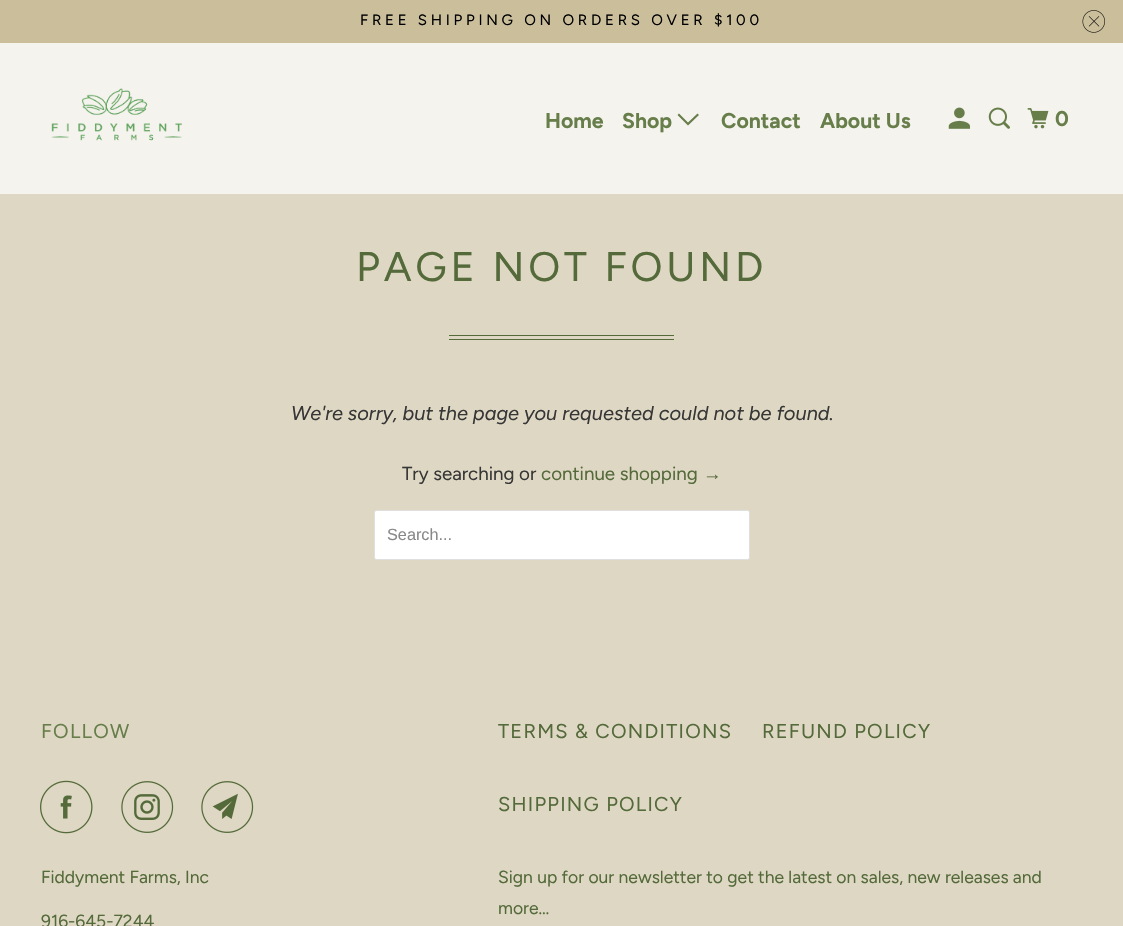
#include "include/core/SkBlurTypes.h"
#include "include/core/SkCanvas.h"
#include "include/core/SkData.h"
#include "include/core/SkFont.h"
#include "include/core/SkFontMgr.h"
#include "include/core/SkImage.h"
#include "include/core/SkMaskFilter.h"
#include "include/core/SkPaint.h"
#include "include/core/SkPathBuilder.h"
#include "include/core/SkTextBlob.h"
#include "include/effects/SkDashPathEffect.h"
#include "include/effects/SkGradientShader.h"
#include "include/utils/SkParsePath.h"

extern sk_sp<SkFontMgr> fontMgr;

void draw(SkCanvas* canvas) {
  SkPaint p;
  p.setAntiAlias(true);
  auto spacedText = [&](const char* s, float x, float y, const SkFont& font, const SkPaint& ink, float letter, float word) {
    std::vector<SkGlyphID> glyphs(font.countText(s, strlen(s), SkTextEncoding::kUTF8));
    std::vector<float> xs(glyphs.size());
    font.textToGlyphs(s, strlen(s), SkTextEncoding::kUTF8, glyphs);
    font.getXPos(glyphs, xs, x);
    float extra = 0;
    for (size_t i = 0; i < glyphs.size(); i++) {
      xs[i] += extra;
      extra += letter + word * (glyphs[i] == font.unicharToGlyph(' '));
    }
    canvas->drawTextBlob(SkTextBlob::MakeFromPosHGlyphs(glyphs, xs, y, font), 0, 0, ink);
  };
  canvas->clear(SkColorSetRGB(222, 215, 195));
  p.setColor(SkColorSetRGB(202, 190, 155));
  canvas->drawRect(SkRect::MakeLTRB(0, 0, 1123, 43), p);
  canvas->drawImageRect(SkImages::DeferredFromEncodedData(SkData::MakeFromFileName("images/1.png")), SkRect::MakeLTRB(1082, 10, 1105, 33), SkSamplingOptions());
  p.setColor(SkColorSetRGB(245, 243, 237));
  canvas->drawRect(SkRect::MakeLTRB(0, 43, 1123, 194), p);
  canvas->drawImageRect(SkImages::DeferredFromEncodedData(SkData::MakeFromFileName("images/2.png")), SkRect::MakeLTRB(51, 88, 182, 141), SkSamplingOptions());
  p.setColor(SkColorSetRGB(103, 126, 75));
  canvas->drawPath(SkPathBuilder().moveTo(683, 120.5f).lineTo(677.5f, 115).lineTo(679, 113.5f).lineTo(688, 122.5f).lineTo(697.5f, 113.5f).lineTo(699, 115).lineTo(688, 125.5f).close().detach(), p);
  canvas->drawImageRect(SkImages::DeferredFromEncodedData(SkData::MakeFromFileName("images/3.png")), SkRect::MakeLTRB(948, 107, 970, 129), SkSamplingOptions());
  canvas->drawImageRect(SkImages::DeferredFromEncodedData(SkData::MakeFromFileName("images/4.png")), SkRect::MakeLTRB(988, 107, 1010, 129), SkSamplingOptions());
  canvas->drawImageRect(SkImages::DeferredFromEncodedData(SkData::MakeFromFileName("images/5.png")), SkRect::MakeLTRB(1027, 108, 1049, 129), SkSamplingOptions());
  p.setColor(SkColorSetRGB(84, 106, 58));
  canvas->drawRect(SkRect::MakeLTRB(449, 335, 674, 336), p);
  canvas->drawRect(SkRect::MakeLTRB(449, 339, 674, 340), p);
  p.setColor(SK_ColorWHITE);
  canvas->drawRoundRect(SkRect::MakeLTRB(374.5f, 510.5f, 749.5f, 559.5f), 2, 2, p);
  p.setStyle(SkPaint::kStroke_Style);
  p.setStrokeWidth(1);
  p.setColor(SkColorSetRGB(223, 223, 223));
  canvas->drawRoundRect(SkRect::MakeLTRB(374.5f, 510.5f, 749.5f, 559.5f), 2, 2, p);
  canvas->drawImageRect(SkImages::DeferredFromEncodedData(SkData::MakeFromFileName("images/6.png")), SkRect::MakeLTRB(40, 780, 93, 834), SkSamplingOptions());
  canvas->drawImageRect(SkImages::DeferredFromEncodedData(SkData::MakeFromFileName("images/7.png")), SkRect::MakeLTRB(121, 781, 174, 833), SkSamplingOptions());
  canvas->drawImageRect(SkImages::DeferredFromEncodedData(SkData::MakeFromFileName("images/8.png")), SkRect::MakeLTRB(201, 781, 254, 833), SkSamplingOptions());
  SkFont font1(fontMgr->matchFamilyStyle("Figtree", SkFontStyle::Normal()), 15);
  font1.setSubpixel(true);
  p.setStyle(SkPaint::kFill_Style);
  p.setColor(SK_ColorBLACK);
  spacedText("FREE SHIPPING ON ORDERS OVER $100", 360, 25, font1, p, 3.75f, 0);
  SkFont font2(fontMgr->matchFamilyStyle("Figtree", SkFontStyle::Bold()), 21.25f);
  font2.setSubpixel(true);
  p.setColor(SkColorSetRGB(103, 126, 75));
  canvas->drawString("Home", 545, 128, font2, p);
  canvas->drawString("Shop", 622, 128, font2, p);
  canvas->drawString("Contact", 721, 128, font2, p);
  canvas->drawString("About Us", 820, 128, font2, p);
  canvas->drawString("0", 1055, 126, font2, p);
  SkFont font3(fontMgr->matchFamilyStyle("Figtree", SkFontStyle::Normal()), 41.25f);
  font3.setSubpixel(true);
  p.setColor(SkColorSetRGB(84, 106, 58));
  spacedText("PAGE NOT FOUND", 356, 281, font3, p, 3.75f, 0);
  SkFont font4(fontMgr->matchFamilyStyle("Figtree", SkFontStyle::Italic()), 20);
  font4.setSubpixel(true);
  p.setColor(SkColorSetRGB(54, 54, 54));
  canvas->drawString("We're sorry, but the page you requested could not be found.", 291, 420, font4, p);
  SkFont font5(fontMgr->matchFamilyStyle("Figtree", SkFontStyle::Normal()), 18.75f);
  font5.setSubpixel(true);
  canvas->drawString("Try searching or", 402, 480, font5, p);
  p.setColor(SkColorSetRGB(84, 106, 58));
  canvas->drawString("continue shopping", 541, 480, font5, p);
  SkFont font6(fontMgr->matchFamilyStyle("Liberation Sans", SkFontStyle::Normal()), 18.75f);
  font6.setSubpixel(true);
  canvas->drawString("→", 703, 480, font6, p);
  SkFont font7(fontMgr->matchFamilyStyle("Liberation Sans", SkFontStyle::Normal()), 16.25f);
  font7.setSubpixel(true);
  p.setColor(SkColorSetRGB(136, 136, 136));
  canvas->drawString("Search...", 387, 540, font7, p);
  SkFont font8(fontMgr->matchFamilyStyle("Figtree", SkFontStyle::Normal()), 20);
  font8.setSubpixel(true);
  p.setColor(SkColorSetRGB(103, 126, 75));
  spacedText("FOLLOW", 41, 738, font8, p, 1.25f, 0);
  SkFont font9(fontMgr->matchFamilyStyle("Figtree", SkFontStyle::Normal()), 17.5f);
  font9.setSubpixel(true);
  p.setColor(SkColorSetRGB(84, 106, 58));
  canvas->drawString("Fiddyment Farms, Inc", 41, 883, font9, p);
  canvas->drawString("916-645-7244", 41, 927, font9, p);
  spacedText("TERMS & CONDITIONS", 498, 738, font8, p, 1.25f, 0);
  spacedText("REFUND POLICY", 762, 738, font8, p, 1.25f, 0);
  spacedText("SHIPPING POLICY", 498, 811, font8, p, 1.25f, 0);
  canvas->drawString("Sign up for our newsletter to get the latest on sales, new releases and", 498, 883, font9, p);
  canvas->drawString("more…", 498, 914, font9, p);
}
